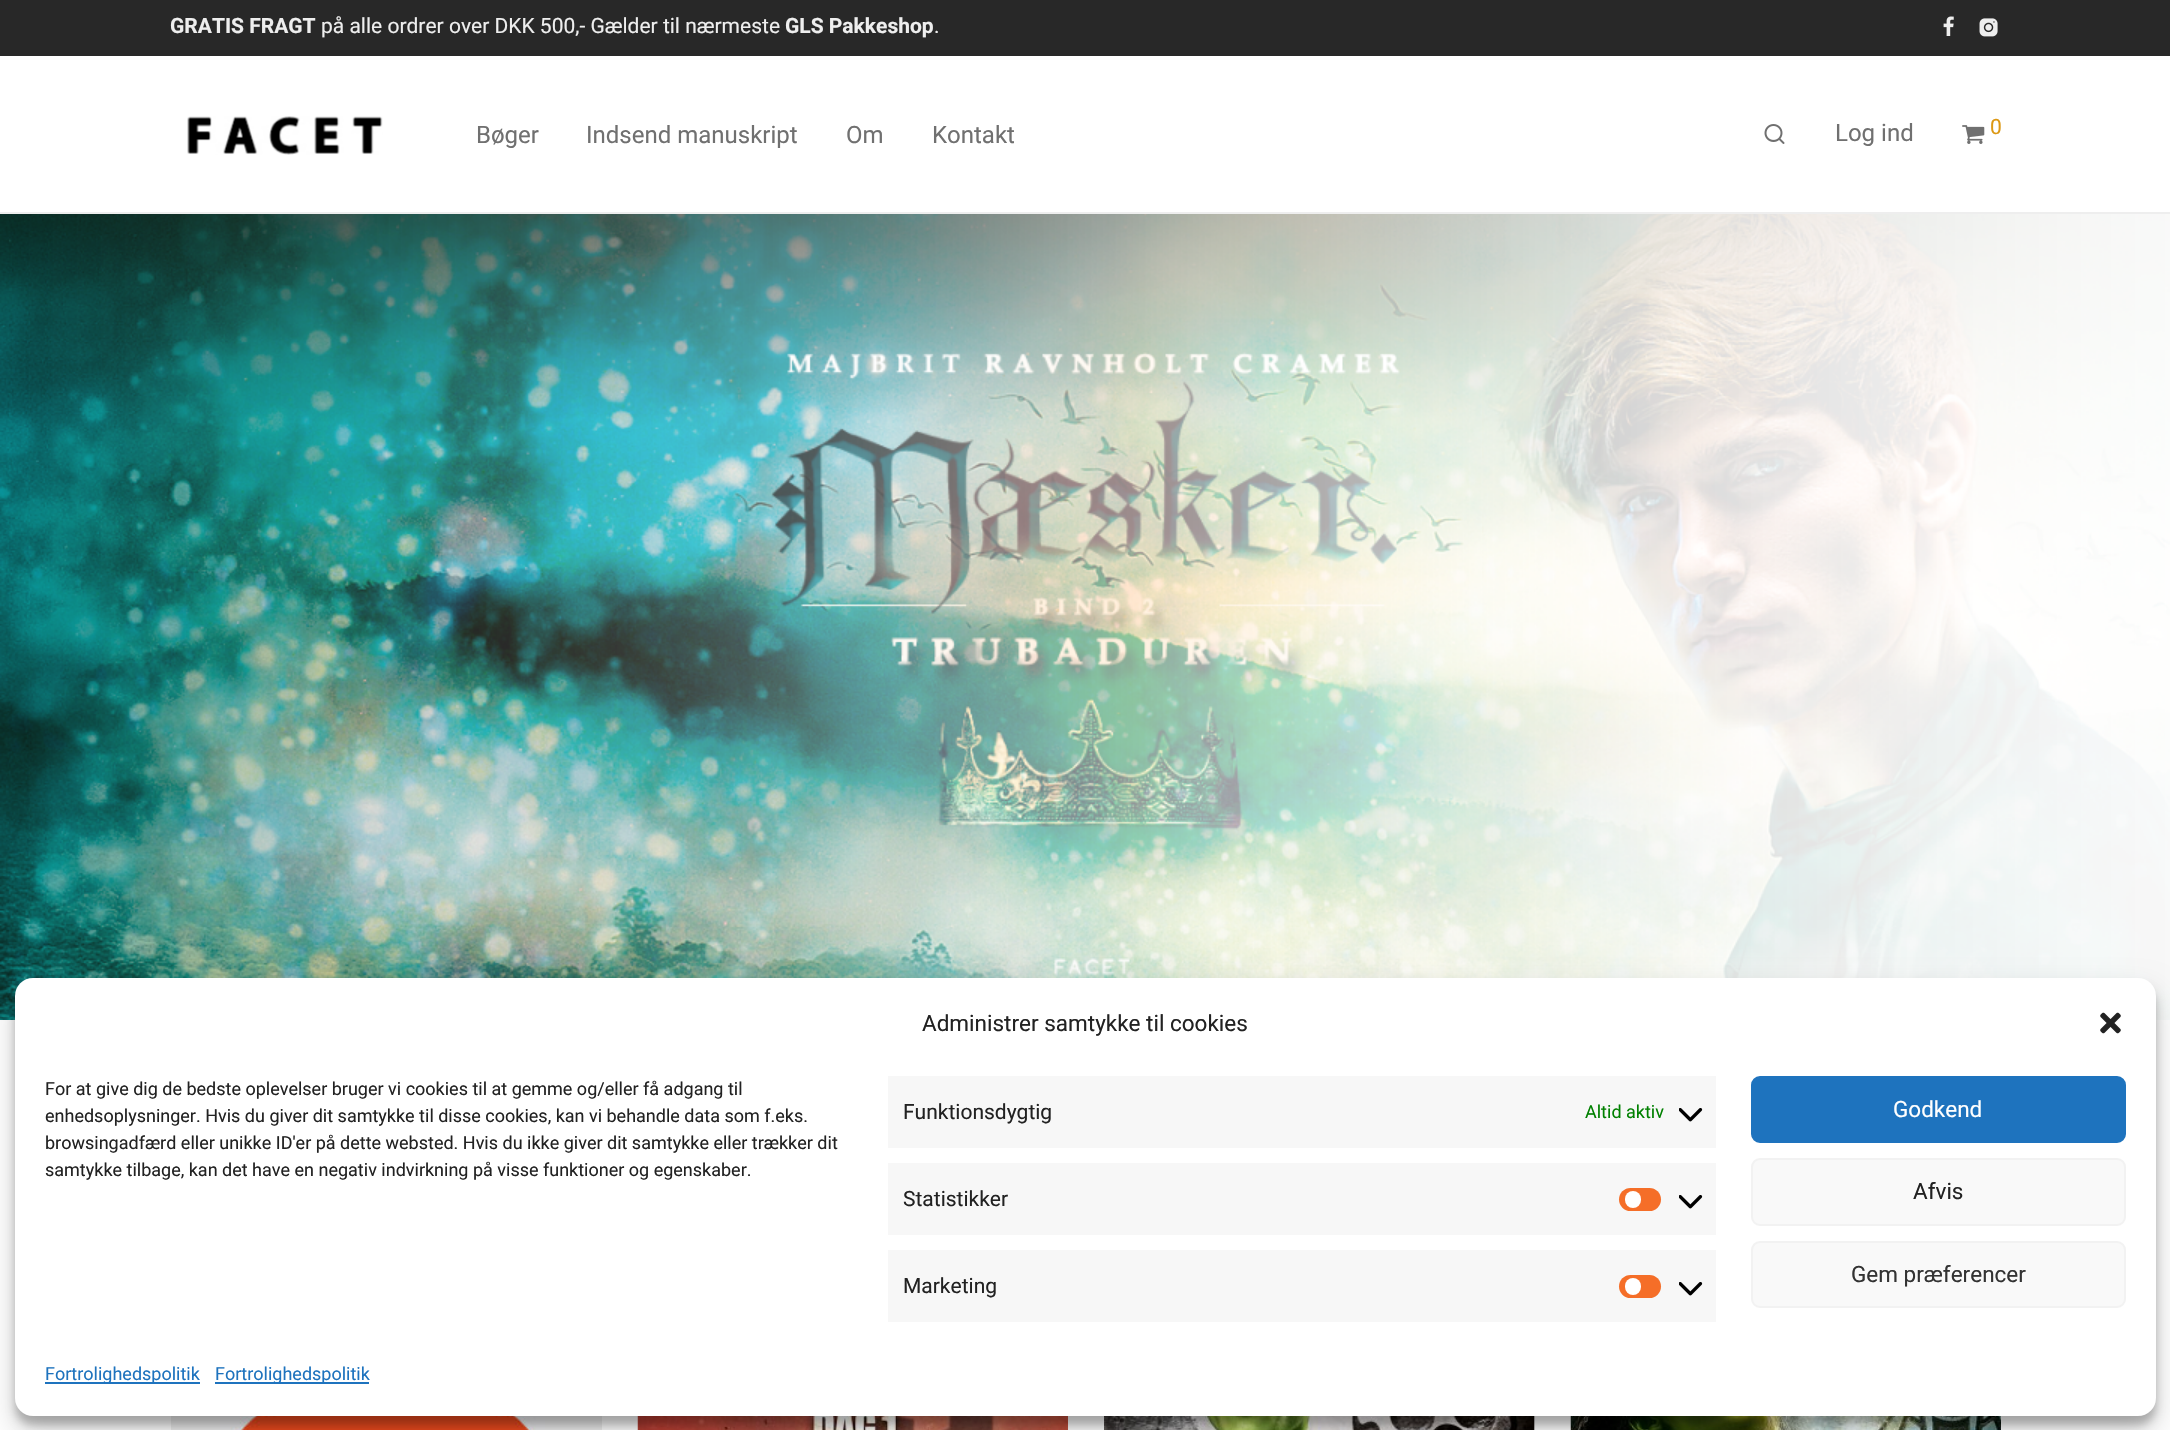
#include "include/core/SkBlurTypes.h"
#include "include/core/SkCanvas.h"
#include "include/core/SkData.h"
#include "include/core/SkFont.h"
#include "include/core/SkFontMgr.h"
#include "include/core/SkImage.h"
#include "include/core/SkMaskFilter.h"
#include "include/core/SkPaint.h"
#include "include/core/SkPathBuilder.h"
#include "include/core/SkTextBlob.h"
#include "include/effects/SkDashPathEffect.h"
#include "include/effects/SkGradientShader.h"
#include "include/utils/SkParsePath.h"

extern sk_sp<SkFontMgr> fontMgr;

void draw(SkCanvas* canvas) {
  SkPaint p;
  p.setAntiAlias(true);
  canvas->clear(SK_ColorWHITE);
  p.setColor(SkColorSetRGB(40, 40, 40));
  canvas->drawRect(SkRect::MakeLTRB(0, 0, 2170, 56), p);
  canvas->drawImageRect(SkImages::DeferredFromEncodedData(SkData::MakeFromFileName("images/1.png")), SkRect::MakeLTRB(1943, 16, 1954, 36), SkSamplingOptions());
  canvas->drawImageRect(SkImages::DeferredFromEncodedData(SkData::MakeFromFileName("images/2.png")), SkRect::MakeLTRB(1979, 18, 1998, 37), SkSamplingOptions());
  p.setColor(SkColorSetRGB(238, 238, 238));
  canvas->drawRect(SkRect::MakeLTRB(0, 212, 2170, 214), p);
  canvas->drawImageRect(SkImages::DeferredFromEncodedData(SkData::MakeFromFileName("images/3.png")), SkRect::MakeLTRB(187, 116, 383, 155), SkSamplingOptions());
  canvas->drawImageRect(SkImages::DeferredFromEncodedData(SkData::MakeFromFileName("images/4.png")), SkRect::MakeLTRB(1764, 124, 1785, 144), SkSamplingOptions());
  canvas->drawImageRect(SkImages::DeferredFromEncodedData(SkData::MakeFromFileName("images/5.png")), SkRect::MakeLTRB(1962, 125, 1985, 144), SkSamplingOptions());
  canvas->drawImageRect(SkImages::DeferredFromEncodedData(SkData::MakeFromFileName("images/6.png")), SkRect::MakeLTRB(0, 214, 2170, 1020), SkSamplingOptions());
  canvas->drawRect(SkRect::MakeLTRB(171, 1416, 602, 1430), p);
  canvas->drawImageRect(SkImages::DeferredFromEncodedData(SkData::MakeFromFileName("images/7.png")), SkRect::MakeLTRB(220, 1416, 545, 1430), SkSamplingOptions());
  canvas->drawImageRect(SkImages::DeferredFromEncodedData(SkData::MakeFromFileName("images/8.png")), SkRect::MakeLTRB(637, 1416, 1068, 1430), SkSamplingOptions());
  canvas->drawRect(SkRect::MakeLTRB(1534, 1416, 1535, 1430), p);
  canvas->drawImageRect(SkImages::DeferredFromEncodedData(SkData::MakeFromFileName("images/9.png")), SkRect::MakeLTRB(1104, 1416, 1535, 1430), SkSamplingOptions());
  canvas->drawImageRect(SkImages::DeferredFromEncodedData(SkData::MakeFromFileName("images/10.png")), SkRect::MakeLTRB(1570, 1416, 2001, 1430), SkSamplingOptions());
  p.setColor(SkColorSetARGB(59, 0, 0, 0));
  p.setMaskFilter(SkMaskFilter::MakeBlur(kNormal_SkBlurStyle, 4.5f));
  canvas->drawRoundRect(SkRect::MakeLTRB(15, 987, 2156, 1425), 18, 18, p);
  p.setMaskFilter(nullptr);
  p.setColor(SkColorSetARGB(48, 0, 0, 0));
  p.setMaskFilter(SkMaskFilter::MakeBlur(kNormal_SkBlurStyle, 15));
  canvas->drawRoundRect(SkRect::MakeLTRB(15, 993, 2156, 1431), 18, 18, p);
  p.setMaskFilter(nullptr);
  p.setColor(SK_ColorWHITE);
  canvas->drawRoundRect(SkRect::MakeLTRB(15, 978, 2156, 1416), 18, 18, p);
  canvas->drawImageRect(SkImages::DeferredFromEncodedData(SkData::MakeFromFileName("images/11.png")), SkRect::MakeLTRB(2100, 1012, 2121, 1034), SkSamplingOptions());
  p.setColor(SkColorSetRGB(247, 247, 247));
  canvas->drawRect(SkRect::MakeLTRB(888, 1076, 1716, 1148), p);
  canvas->drawImageRect(SkImages::DeferredFromEncodedData(SkData::MakeFromFileName("images/12.png")), SkRect::MakeLTRB(1679, 1108, 1703, 1122), SkSamplingOptions());
  canvas->drawRect(SkRect::MakeLTRB(888, 1163, 1716, 1235), p);
  p.setColor(SkColorSetRGB(245, 110, 40));
  canvas->drawRoundRect(SkRect::MakeLTRB(1619, 1188, 1661, 1211), 11.5f, 11.5f, p);
  p.setColor(SK_ColorWHITE);
  canvas->drawRoundRect(SkRect::MakeLTRB(1625, 1191, 1641, 1208), 8, 8, p);
  canvas->drawImageRect(SkImages::DeferredFromEncodedData(SkData::MakeFromFileName("images/12.png")), SkRect::MakeLTRB(1679, 1195, 1703, 1209), SkSamplingOptions());
  p.setColor(SkColorSetRGB(247, 247, 247));
  canvas->drawRect(SkRect::MakeLTRB(888, 1250, 1716, 1322), p);
  p.setColor(SkColorSetRGB(245, 110, 40));
  canvas->drawRoundRect(SkRect::MakeLTRB(1619, 1275, 1661, 1298), 11.5f, 11.5f, p);
  p.setColor(SK_ColorWHITE);
  canvas->drawRoundRect(SkRect::MakeLTRB(1625, 1278, 1641, 1295), 8, 8, p);
  canvas->drawImageRect(SkImages::DeferredFromEncodedData(SkData::MakeFromFileName("images/12.png")), SkRect::MakeLTRB(1679, 1282, 1703, 1296), SkSamplingOptions());
  p.setColor(SkColorSetRGB(30, 115, 190));
  canvas->drawRoundRect(SkRect::MakeLTRB(1752, 1077, 2125, 1142), 8, 8, p);
  p.setStyle(SkPaint::kStroke_Style);
  p.setStrokeWidth(2);
  canvas->drawRoundRect(SkRect::MakeLTRB(1752, 1077, 2125, 1142), 8, 8, p);
  p.setStyle(SkPaint::kFill_Style);
  p.setColor(SkColorSetRGB(249, 249, 249));
  canvas->drawRoundRect(SkRect::MakeLTRB(1752, 1159, 2125, 1225), 8, 8, p);
  p.setStyle(SkPaint::kStroke_Style);
  p.setColor(SkColorSetRGB(242, 242, 242));
  canvas->drawRoundRect(SkRect::MakeLTRB(1752, 1159, 2125, 1225), 8, 8, p);
  p.setStyle(SkPaint::kFill_Style);
  p.setColor(SkColorSetRGB(249, 249, 249));
  canvas->drawRoundRect(SkRect::MakeLTRB(1752, 1242, 2125, 1307), 8, 8, p);
  p.setStyle(SkPaint::kStroke_Style);
  p.setColor(SkColorSetRGB(242, 242, 242));
  canvas->drawRoundRect(SkRect::MakeLTRB(1752, 1242, 2125, 1307), 8, 8, p);
  p.setStyle(SkPaint::kFill_Style);
  p.setColor(SkColorSetRGB(30, 115, 190));
  canvas->drawRect(SkRect::MakeLTRB(45, 1382, 200, 1384), p);
  canvas->drawRect(SkRect::MakeLTRB(215, 1382, 369, 1384), p);
  SkFont font1(fontMgr->matchFamilyStyle("Roboto", SkFontStyle::Bold()), 21);
  font1.setSubpixel(true);
  p.setColor(SkColorSetRGB(238, 238, 238));
  canvas->drawString("GRATIS FRAGT", 170, 33, font1, p);
  SkFont font2(fontMgr->matchFamilyStyle("Roboto", SkFontStyle::Normal()), 21);
  font2.setSubpixel(true);
  canvas->drawString("på alle ordrer over DKK 500,- Gælder til nærmeste", 321, 33, font2, p);
  canvas->drawString("GLS Pakkeshop", 785, 33, font1, p);
  canvas->drawString(".", 934, 33, font2, p);
  SkFont font3(fontMgr->matchFamilyStyle("Roboto", SkFontStyle::Normal()), 24);
  font3.setSubpixel(true);
  p.setColor(SkColorSetRGB(112, 112, 112));
  canvas->drawString("Bøger", 476, 143, font3, p);
  canvas->drawString("Indsend manuskript", 586, 143, font3, p);
  canvas->drawString("Om", 846, 143, font3, p);
  canvas->drawString("Kontakt", 932, 143, font3, p);
  canvas->drawString("Log ind", 1835, 141, font3, p);
  p.setColor(SkColorSetRGB(220, 152, 20));
  canvas->drawString("0", 1990, 134, font2, p);
  SkFont font4(fontMgr->matchFamilyStyle("Roboto", SkFontStyle::Normal()), 22.5f);
  font4.setSubpixel(true);
  p.setColor(SkColorSetRGB(34, 34, 34));
  canvas->drawString("Administrer samtykke til cookies", 922, 1031, font4, p);
  SkFont font5(fontMgr->matchFamilyStyle("Roboto", SkFontStyle::Normal()), 18);
  font5.setSubpixel(true);
  canvas->drawString("For at give dig de bedste oplevelser bruger vi cookies til at gemme og/eller få adgang til", 45, 1095, font5, p);
  canvas->drawString("enhedsoplysninger. Hvis du giver dit samtykke til disse cookies, kan vi behandle data som f.eks.", 45, 1122, font5, p);
  canvas->drawString("browsingadfærd eller unikke ID'er på dette websted. Hvis du ikke giver dit samtykke eller trækker dit", 45, 1149, font5, p);
  canvas->drawString("samtykke tilbage, kan det have en negativ indvirkning på visse funktioner og egenskaber.", 45, 1176, font5, p);
  canvas->drawString("Funktionsdygtig", 903, 1119, font2, p);
  p.setColor(SkColorSetRGB(0, 128, 0));
  canvas->drawString("Altid aktiv", 1585, 1118, font5, p);
  p.setColor(SkColorSetRGB(34, 34, 34));
  canvas->drawString("Statistikker", 903, 1206, font2, p);
  canvas->drawString("Marketing", 903, 1293, font2, p);
  p.setColor(SK_ColorWHITE);
  canvas->drawString("Godkend", 1893, 1117, font4, p);
  p.setColor(SkColorSetRGB(34, 34, 34));
  canvas->drawString("Afvis", 1913, 1199, font4, p);
  p.setColor(SkColorSetRGB(51, 51, 51));
  canvas->drawString("Gem præferencer", 1851, 1282, font4, p);
  p.setColor(SkColorSetRGB(30, 115, 190));
  canvas->drawString("Fortrolighedspolitik", 45, 1380, font5, p);
  canvas->drawString("Fortrolighedspolitik", 215, 1380, font5, p);
}
